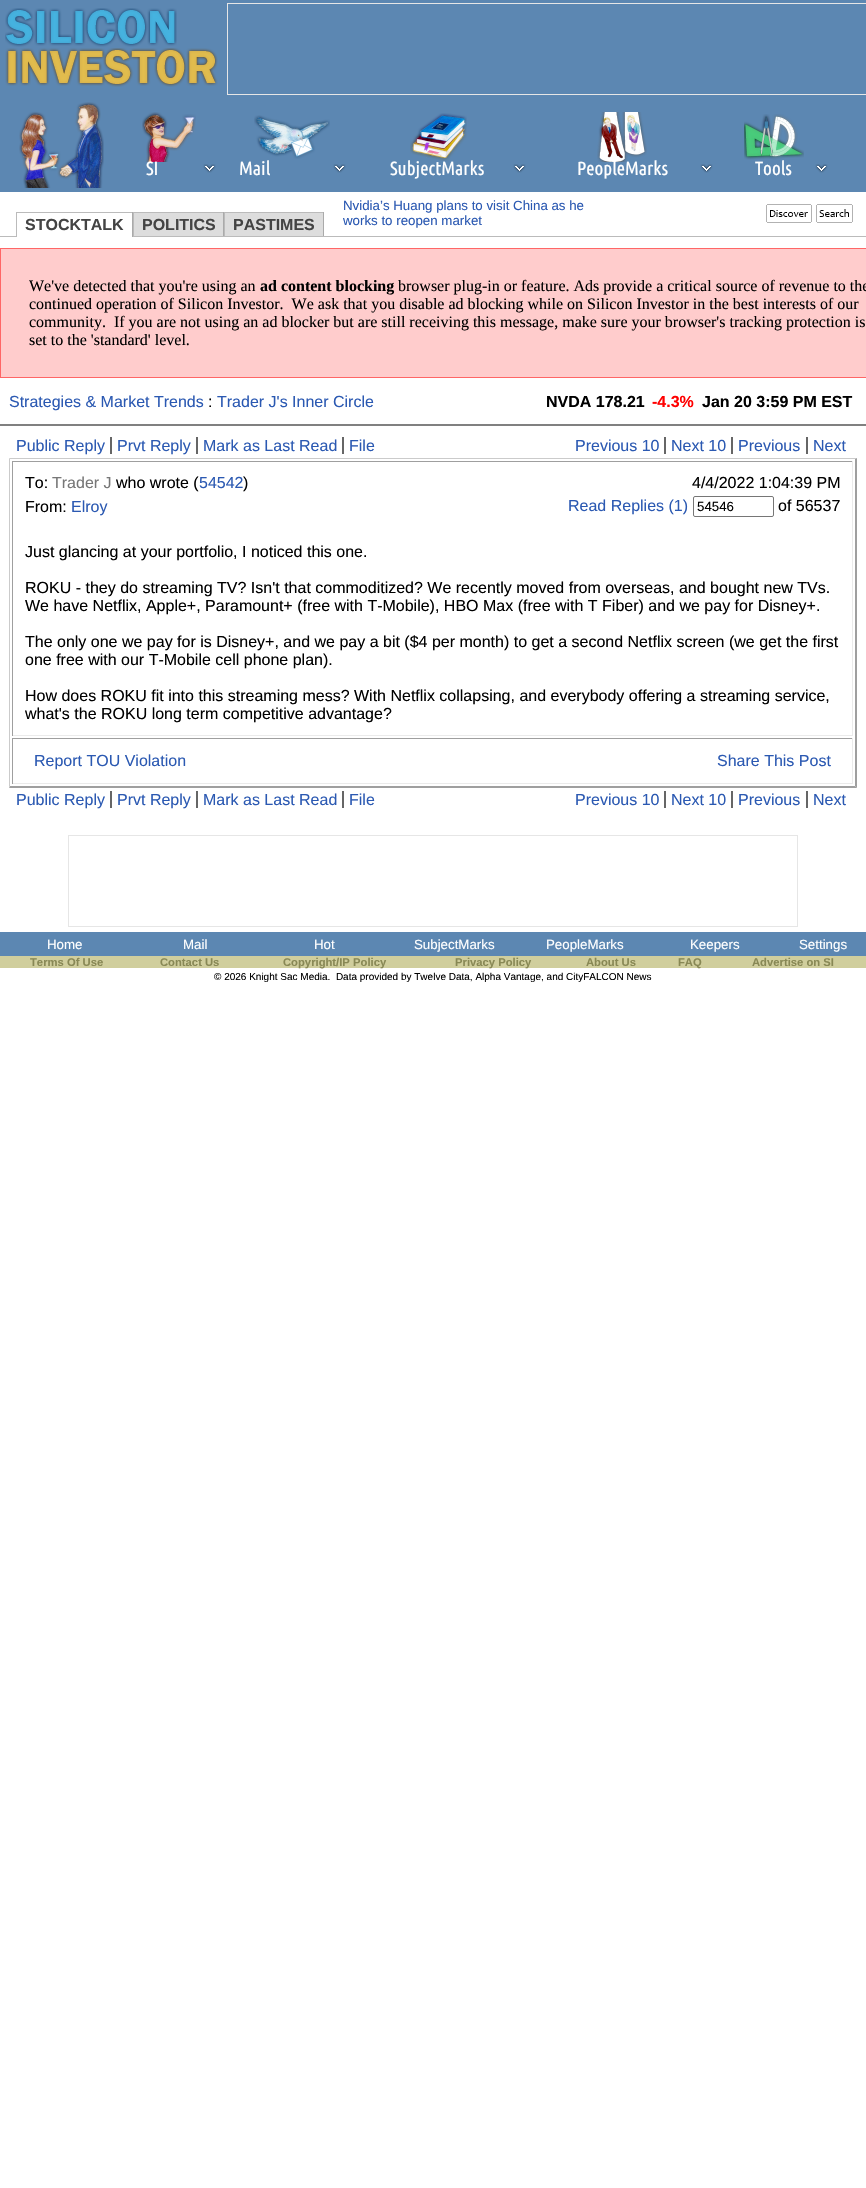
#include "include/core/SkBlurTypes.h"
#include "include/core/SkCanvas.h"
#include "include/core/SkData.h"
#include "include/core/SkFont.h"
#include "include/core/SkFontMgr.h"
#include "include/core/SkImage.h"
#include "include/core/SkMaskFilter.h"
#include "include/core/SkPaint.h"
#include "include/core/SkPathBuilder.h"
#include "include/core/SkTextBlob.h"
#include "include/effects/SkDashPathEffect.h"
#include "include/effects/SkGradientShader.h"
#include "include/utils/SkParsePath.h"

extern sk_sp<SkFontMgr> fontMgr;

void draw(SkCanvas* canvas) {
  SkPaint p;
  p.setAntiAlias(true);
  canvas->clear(SK_ColorWHITE);
  p.setColor(SkColorSetRGB(92, 135, 178));
  canvas->drawRect(SkRect::MakeLTRB(0, 0, 866, 192), p);
  canvas->drawImageRect(SkImages::DeferredFromEncodedData(SkData::MakeFromFileName("images/1.png")), SkRect::MakeLTRB(5, 8, 218, 87), SkSamplingOptions());
  p.setStyle(SkPaint::kStroke_Style);
  p.setStrokeWidth(1);
  p.setColor(SkColorSetRGB(230, 230, 230));
  canvas->drawRect(SkRect::MakeLTRB(227.5f, 3.5f, 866.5f, 94.5f), p);
  canvas->drawImageRect(SkImages::DeferredFromEncodedData(SkData::MakeFromFileName("images/2.png")), SkRect::MakeLTRB(19, 102, 104, 188), SkSamplingOptions());
  canvas->drawImageRect(SkImages::DeferredFromEncodedData(SkData::MakeFromFileName("images/3.png")), SkRect::MakeLTRB(142, 112, 196, 162), SkSamplingOptions());
  canvas->drawImageRect(SkImages::DeferredFromEncodedData(SkData::MakeFromFileName("images/4.png")), SkRect::MakeLTRB(203, 164, 216, 173), SkSamplingOptions());
  canvas->drawImageRect(SkImages::DeferredFromEncodedData(SkData::MakeFromFileName("images/5.png")), SkRect::MakeLTRB(254, 115, 330, 159), SkSamplingOptions());
  canvas->drawImageRect(SkImages::DeferredFromEncodedData(SkData::MakeFromFileName("images/4.png")), SkRect::MakeLTRB(333, 164, 346, 173), SkSamplingOptions());
  canvas->drawImageRect(SkImages::DeferredFromEncodedData(SkData::MakeFromFileName("images/6.png")), SkRect::MakeLTRB(410, 113, 467, 161), SkSamplingOptions());
  canvas->drawImageRect(SkImages::DeferredFromEncodedData(SkData::MakeFromFileName("images/4.png")), SkRect::MakeLTRB(513, 164, 526, 173), SkSamplingOptions());
  canvas->drawImageRect(SkImages::DeferredFromEncodedData(SkData::MakeFromFileName("images/7.png")), SkRect::MakeLTRB(597, 112, 647, 162), SkSamplingOptions());
  canvas->drawImageRect(SkImages::DeferredFromEncodedData(SkData::MakeFromFileName("images/4.png")), SkRect::MakeLTRB(700, 164, 713, 173), SkSamplingOptions());
  canvas->drawImageRect(SkImages::DeferredFromEncodedData(SkData::MakeFromFileName("images/8.png")), SkRect::MakeLTRB(744, 114, 804, 160), SkSamplingOptions());
  canvas->drawImageRect(SkImages::DeferredFromEncodedData(SkData::MakeFromFileName("images/4.png")), SkRect::MakeLTRB(815, 164, 828, 173), SkSamplingOptions());
  p.setStyle(SkPaint::kFill_Style);
  p.setColor(SkColorSetRGB(187, 187, 187));
  canvas->drawRect(SkRect::MakeLTRB(16, 212, 324, 213), p);
  p.setColor(SkColorSetRGB(170, 170, 170));
  canvas->drawRect(SkRect::MakeLTRB(223, 212, 224, 237), p);
  p.setColor(SkColorSetRGB(187, 187, 187));
  canvas->drawRect(SkRect::MakeLTRB(133, 212, 134, 237), p);
  p.setColor(SkColorSetRGB(170, 170, 170));
  canvas->drawRect(SkRect::MakeLTRB(323, 212, 324, 237), p);
  p.setColor(SkColorSetRGB(187, 187, 187));
  canvas->drawRect(SkRect::MakeLTRB(224, 212, 225, 237), p);
  canvas->drawRect(SkRect::MakeLTRB(0, 236, 866, 237), p);
  p.setColor(SK_ColorWHITE);
  canvas->drawRect(SkRect::MakeLTRB(17, 236, 132, 237), p);
  p.setColor(SkColorSetRGB(170, 170, 170));
  canvas->drawRect(SkRect::MakeLTRB(132, 212, 133, 237), p);
  p.setColor(SkColorSetRGB(187, 187, 187));
  canvas->drawRect(SkRect::MakeLTRB(16, 212, 17, 237), p);
  p.setColor(SkColorSetRGB(221, 221, 221));
  canvas->drawRect(SkRect::MakeLTRB(134, 213, 223, 236), p);
  canvas->drawRect(SkRect::MakeLTRB(225, 213, 323, 236), p);
  canvas->drawImageRect(SkImages::DeferredFromEncodedData(SkData::MakeFromFileName("images/9.png")), SkRect::MakeLTRB(766, 204, 812, 223), SkSamplingOptions());
  canvas->drawImageRect(SkImages::DeferredFromEncodedData(SkData::MakeFromFileName("images/10.png")), SkRect::MakeLTRB(816, 204, 853, 223), SkSamplingOptions());
  p.setColor(SkColorSetRGB(255, 204, 204));
  canvas->drawRect(SkRect::MakeLTRB(0.5f, 248.5f, 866.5f, 377.5f), p);
  p.setStyle(SkPaint::kStroke_Style);
  p.setColor(SkColorSetRGB(255, 102, 102));
  canvas->drawRect(SkRect::MakeLTRB(0.5f, 248.5f, 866.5f, 377.5f), p);
  p.setStyle(SkPaint::kFill_Style);
  p.setColor(SkColorSetRGB(128, 128, 128));
  canvas->drawRect(SkRect::MakeLTRB(0, 424, 866, 426), p);
  p.setColor(SkColorSetRGB(102, 102, 102));
  canvas->drawRect(SkRect::MakeLTRB(110, 437, 112, 454), p);
  canvas->drawRect(SkRect::MakeLTRB(196, 437, 198, 454), p);
  canvas->drawRect(SkRect::MakeLTRB(342, 437, 344, 454), p);
  canvas->drawRect(SkRect::MakeLTRB(664, 437, 666, 454), p);
  canvas->drawRect(SkRect::MakeLTRB(731, 437, 733, 454), p);
  canvas->drawRect(SkRect::MakeLTRB(806, 437, 808, 454), p);
  p.setColor(SkColorSetRGB(203, 203, 203));
  canvas->drawPath(SkPathBuilder().moveTo(9, 458).lineTo(857, 458).lineTo(855, 459).lineTo(10, 459).close().detach(), p);
  p.setColor(SkColorSetRGB(159, 159, 159));
  canvas->drawPath(SkPathBuilder().moveTo(857, 458).lineTo(857, 788).lineTo(855, 786).lineTo(855, 459).close().detach(), p);
  canvas->drawPath(SkPathBuilder().moveTo(857, 788).lineTo(9, 788).lineTo(10, 786).lineTo(855, 786).close().detach(), p);
  p.setColor(SkColorSetRGB(203, 203, 203));
  canvas->drawPath(SkPathBuilder().moveTo(9, 788).lineTo(9, 458).lineTo(10, 459).lineTo(10, 786).close().detach(), p);
  p.setColor(SkColorSetRGB(159, 159, 159));
  canvas->drawRect(SkRect::MakeLTRB(12, 461, 853, 462), p);
  p.setColor(SkColorSetRGB(235, 235, 235));
  canvas->drawRect(SkRect::MakeLTRB(852, 461, 853, 736), p);
  canvas->drawRect(SkRect::MakeLTRB(12, 735, 853, 736), p);
  p.setColor(SkColorSetRGB(159, 159, 159));
  canvas->drawRect(SkRect::MakeLTRB(12, 461, 13, 736), p);
  p.setStyle(SkPaint::kStroke_Style);
  p.setColor(SkColorSetRGB(118, 118, 118));
  canvas->drawRoundRect(SkRect::MakeLTRB(693.5f, 496.5f, 773.5f, 516.5f), 1.5f, 1.5f, p);
  p.setStyle(SkPaint::kFill_Style);
  p.setColor(SkColorSetRGB(159, 159, 159));
  canvas->drawRect(SkRect::MakeLTRB(12, 738, 853, 739), p);
  p.setColor(SkColorSetRGB(235, 235, 235));
  canvas->drawRect(SkRect::MakeLTRB(852, 738, 853, 784), p);
  canvas->drawRect(SkRect::MakeLTRB(12, 783, 853, 784), p);
  p.setColor(SkColorSetRGB(159, 159, 159));
  canvas->drawRect(SkRect::MakeLTRB(12, 738, 13, 784), p);
  p.setColor(SkColorSetRGB(102, 102, 102));
  canvas->drawRect(SkRect::MakeLTRB(110, 791, 112, 808), p);
  canvas->drawRect(SkRect::MakeLTRB(196, 791, 198, 808), p);
  canvas->drawRect(SkRect::MakeLTRB(342, 791, 344, 808), p);
  canvas->drawRect(SkRect::MakeLTRB(664, 791, 666, 808), p);
  canvas->drawRect(SkRect::MakeLTRB(731, 791, 733, 808), p);
  canvas->drawRect(SkRect::MakeLTRB(806, 791, 808, 808), p);
  p.setStyle(SkPaint::kStroke_Style);
  p.setColor(SkColorSetRGB(230, 230, 230));
  canvas->drawRect(SkRect::MakeLTRB(68.5f, 835.5f, 797.5f, 926.5f), p);
  p.setStyle(SkPaint::kFill_Style);
  p.setColor(SkColorSetRGB(92, 135, 178));
  canvas->drawRect(SkRect::MakeLTRB(0, 932, 866, 956), p);
  p.setColor(SkColorSetRGB(208, 206, 157));
  canvas->drawRect(SkRect::MakeLTRB(0, 956, 866, 968), p);
  SkFont font1(fontMgr->matchFamilyStyle("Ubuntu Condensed", SkFontStyle::Normal()), 19);
  font1.setSubpixel(true);
  p.setColor(SK_ColorWHITE);
  canvas->drawString("SI", 146, 175, font1, p);
  canvas->drawString("Mail", 239, 175, font1, p);
  canvas->drawString("SubjectMarks", 390, 175, font1, p);
  canvas->drawString("PeopleMarks", 577, 175, font1, p);
  canvas->drawString("Tools", 755, 175, font1, p);
  SkFont font2(fontMgr->matchFamilyStyle("Liberation Sans", SkFontStyle::Bold()), 16);
  font2.setSubpixel(true);
  p.setColor(SkColorSetRGB(68, 68, 68));
  canvas->drawString("STOCKTALK", 25, 230, font2, p);
  canvas->drawString("POLITICS", 142, 230, font2, p);
  canvas->drawString("PASTIMES", 233, 230, font2, p);
  SkFont font3(fontMgr->matchFamilyStyle("Liberation Sans", SkFontStyle::Normal()), 13.3f);
  font3.setSubpixel(true);
  p.setColor(SkColorSetRGB(43, 89, 178));
  canvas->drawString("Nvidia’s Huang plans to visit China as he", 343, 210, font3, p);
  canvas->drawString("works to reopen market", 343, 225, font3, p);
  SkFont font4(fontMgr->matchFamilyStyle("Liberation Serif", SkFontStyle::Normal()), 16);
  font4.setSubpixel(true);
  p.setColor(SK_ColorBLACK);
  canvas->drawString("We've detected that you're using an", 29, 291, font4, p);
  SkFont font5(fontMgr->matchFamilyStyle("Liberation Serif", SkFontStyle::Bold()), 16);
  font5.setSubpixel(true);
  canvas->drawString("ad content blocking", 260, 291, font5, p);
  canvas->drawString("browser plug-in or feature. Ads provide a critical source of revenue to the", 398, 291, font4, p);
  canvas->drawString("continued operation of Silicon Investor.  We ask that you disable ad blocking while on Silicon Investor in the best interests of our", 29, 309, font4, p);
  canvas->drawString("community.  If you are not using an ad blocker but are still receiving this message, make sure your browser's tracking protection is", 29, 327, font4, p);
  canvas->drawString("set to the 'standard' level.", 29, 345, font4, p);
  SkFont font6(fontMgr->matchFamilyStyle("Liberation Sans", SkFontStyle::Normal()), 16);
  font6.setSubpixel(true);
  p.setColor(SkColorSetRGB(43, 89, 178));
  canvas->drawString("Strategies & Market Trends", 9, 407, font6, p);
  p.setColor(SK_ColorBLACK);
  canvas->drawString(":", 208, 407, font6, p);
  p.setColor(SkColorSetRGB(43, 89, 178));
  canvas->drawString("Trader J's Inner Circle", 217, 407, font6, p);
  p.setColor(SK_ColorBLACK);
  canvas->drawString("NVDA 178.21", 546, 407, font2, p);
  p.setColor(SkColorSetRGB(255, 0, 0));
  canvas->drawString("-4.3%", 652, 407, font2, p);
  p.setColor(SK_ColorBLACK);
  canvas->drawString("Jan 20 3:59 PM EST", 702, 407, font2, p);
  p.setColor(SkColorSetRGB(43, 89, 178));
  canvas->drawString("Public Reply", 16, 451, font6, p);
  canvas->drawString("Prvt Reply", 117, 451, font6, p);
  canvas->drawString("Mark as Last Read", 203, 451, font6, p);
  canvas->drawString("File", 349, 451, font6, p);
  canvas->drawString("Previous 10", 575, 451, font6, p);
  canvas->drawString("Next 10", 671, 451, font6, p);
  canvas->drawString("Previous", 738, 451, font6, p);
  canvas->drawString("Next", 813, 451, font6, p);
  p.setColor(SK_ColorBLACK);
  canvas->drawString("To:", 25, 488, font6, p);
  p.setColor(SkColorSetRGB(119, 119, 119));
  canvas->drawString("Trader J", 52, 488, font6, p);
  p.setColor(SK_ColorBLACK);
  canvas->drawString("who wrote (", 116, 488, font6, p);
  p.setColor(SkColorSetRGB(43, 89, 178));
  canvas->drawString("54542", 199, 488, font6, p);
  p.setColor(SK_ColorBLACK);
  canvas->drawString(")", 243, 488, font6, p);
  canvas->drawString("4/4/2022 1:04:39 PM", 692, 488, font6, p);
  canvas->drawString("From:", 25, 512, font6, p);
  p.setColor(SkColorSetRGB(43, 89, 178));
  canvas->drawString("Elroy", 71, 512, font6, p);
  canvas->drawString("Read Replies (1)", 568, 511, font6, p);
  p.setColor(SK_ColorBLACK);
  canvas->drawString("54546", 697, 511, font3, p);
  canvas->drawString("of 56537", 778, 511, font6, p);
  canvas->drawString("Just glancing at your portfolio, I noticed this one.", 25, 557, font6, p);
  canvas->drawString("ROKU - they do streaming TV? Isn't that commoditized? We recently moved from overseas, and bought new TVs.", 25, 593, font6, p);
  canvas->drawString("We have Netflix, Apple+, Paramount+ (free with T-Mobile), HBO Max (free with T Fiber) and we pay for Disney+.", 25, 611, font6, p);
  canvas->drawString("The only one we pay for is Disney+, and we pay a bit ($4 per month) to get a second Netflix screen (we get the first", 25, 647, font6, p);
  canvas->drawString("one free with our T-Mobile cell phone plan).", 25, 665, font6, p);
  canvas->drawString("How does ROKU fit into this streaming mess? With Netflix collapsing, and everybody offering a streaming service,", 25, 701, font6, p);
  canvas->drawString("what's the ROKU long term competitive advantage?", 25, 719, font6, p);
  p.setColor(SkColorSetRGB(43, 89, 178));
  canvas->drawString("Report TOU Violation", 34, 766, font6, p);
  canvas->drawString("Share This Post", 717, 766, font6, p);
  canvas->drawString("Public Reply", 16, 805, font6, p);
  canvas->drawString("Prvt Reply", 117, 805, font6, p);
  canvas->drawString("Mark as Last Read", 203, 805, font6, p);
  canvas->drawString("File", 349, 805, font6, p);
  canvas->drawString("Previous 10", 575, 805, font6, p);
  canvas->drawString("Next 10", 671, 805, font6, p);
  canvas->drawString("Previous", 738, 805, font6, p);
  canvas->drawString("Next", 813, 805, font6, p);
  p.setColor(SK_ColorWHITE);
  canvas->drawString("Home", 47, 949, font3, p);
  canvas->drawString("Mail", 183, 949, font3, p);
  canvas->drawString("Hot", 314, 949, font3, p);
  canvas->drawString("SubjectMarks", 414, 949, font3, p);
  canvas->drawString("PeopleMarks", 546, 949, font3, p);
  canvas->drawString("Keepers", 690, 949, font3, p);
  canvas->drawString("Settings", 799, 949, font3, p);
  SkFont font7(fontMgr->matchFamilyStyle("Liberation Sans", SkFontStyle::Bold()), 11.25f);
  font7.setSubpixel(true);
  p.setColor(SkColorSetRGB(136, 136, 85));
  canvas->drawString("Terms Of Use", 30, 966, font7, p);
  canvas->drawString("Contact Us", 160, 966, font7, p);
  canvas->drawString("Copyright/IP Policy", 283, 966, font7, p);
  canvas->drawString("Privacy Policy", 455, 966, font7, p);
  canvas->drawString("About Us", 586, 966, font7, p);
  canvas->drawString("FAQ", 678, 966, font7, p);
  canvas->drawString("Advertise on SI", 752, 966, font7, p);
  SkFont font8(fontMgr->matchFamilyStyle("Liberation Sans", SkFontStyle::Normal()), 10);
  font8.setSubpixel(true);
  p.setColor(SK_ColorBLACK);
  canvas->drawString("© 2026 Knight Sac Media.  Data provided by Twelve Data, Alpha Vantage, and CityFALCON News", 214, 980, font8, p);
}
